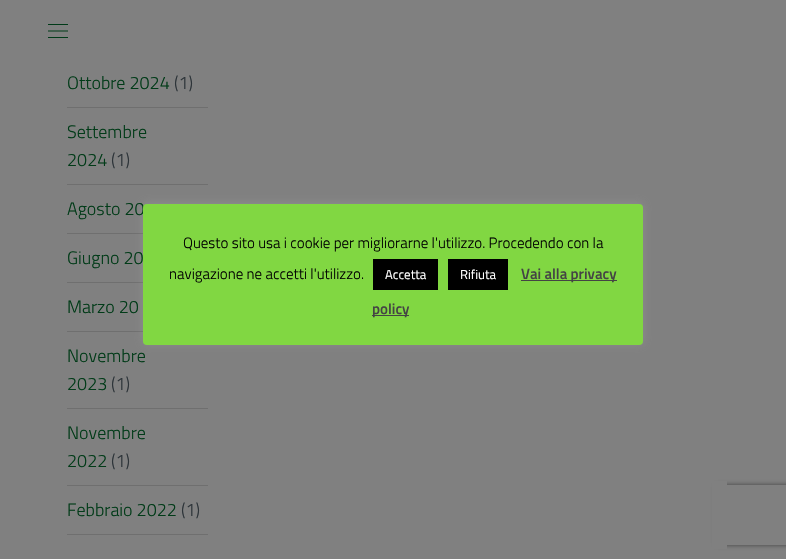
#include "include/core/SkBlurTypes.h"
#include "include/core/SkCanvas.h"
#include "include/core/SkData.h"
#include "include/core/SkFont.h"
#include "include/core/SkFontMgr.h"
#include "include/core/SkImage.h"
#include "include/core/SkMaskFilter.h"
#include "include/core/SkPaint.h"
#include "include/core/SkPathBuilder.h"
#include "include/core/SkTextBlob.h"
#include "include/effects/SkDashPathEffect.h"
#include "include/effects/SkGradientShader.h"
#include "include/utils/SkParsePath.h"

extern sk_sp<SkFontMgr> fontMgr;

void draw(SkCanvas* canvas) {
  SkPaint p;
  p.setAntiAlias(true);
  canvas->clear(SkColorSetRGB(128, 128, 128));
  canvas->drawImageRect(SkImages::DeferredFromEncodedData(SkData::MakeFromFileName("images/1.png")), SkRect::MakeLTRB(48, 24, 68, 38), SkSamplingOptions());
  p.setColor(SkColorSetRGB(111, 111, 111));
  canvas->drawRect(SkRect::MakeLTRB(67, 107, 208, 108), p);
  canvas->drawRect(SkRect::MakeLTRB(67, 184, 208, 185), p);
  canvas->drawRect(SkRect::MakeLTRB(67, 233, 143, 234), p);
  canvas->drawRect(SkRect::MakeLTRB(67, 282, 143, 283), p);
  canvas->drawRect(SkRect::MakeLTRB(67, 331, 143, 332), p);
  canvas->drawRect(SkRect::MakeLTRB(67, 408, 208, 409), p);
  canvas->drawRect(SkRect::MakeLTRB(67, 485, 208, 486), p);
  canvas->drawRect(SkRect::MakeLTRB(67, 534, 208, 535), p);
  canvas->save();
  canvas->clipPath(SkPathBuilder(SkPathFillType::kEvenOdd).moveTo(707, 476).lineTo(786, 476).lineTo(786, 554).lineTo(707, 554).close().moveTo(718, 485).lineTo(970, 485).cubicTo(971, 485, 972, 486, 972, 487).lineTo(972, 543).cubicTo(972, 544, 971, 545, 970, 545).lineTo(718, 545).cubicTo(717, 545, 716, 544, 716, 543).lineTo(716, 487).cubicTo(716, 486, 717, 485, 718, 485).close().detach(), true);
  p.setColor(SkColorSetRGB(64, 64, 64));
  p.setMaskFilter(SkMaskFilter::MakeBlur(kNormal_SkBlurStyle, 2.5f));
  canvas->drawRoundRect(SkRect::MakeLTRB(716, 485, 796, 545), 2, 2, p);
  p.setMaskFilter(nullptr);
  canvas->restore();
  p.setColor(SkColorSetRGB(128, 128, 128));
  canvas->drawRect(SkRect::MakeLTRB(712, 481, 727, 549), p);
  p.setColor(SkColorSetARGB(77, 172, 171, 171));
  p.setMaskFilter(SkMaskFilter::MakeBlur(kNormal_SkBlurStyle, 5));
  canvas->drawRoundRect(SkRect::MakeLTRB(143, 203, 643, 344), 4, 4, p);
  p.setMaskFilter(nullptr);
  SkFont font1(fontMgr->matchFamilyStyle("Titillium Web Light", SkFontStyle(300, SkFontStyle::kNormal_Width, SkFontStyle::kUpright_Slant)), 18);
  font1.setSubpixel(true);
  p.setColor(SkColorSetRGB(1, 59, 24));
  canvas->drawString("Ottobre 2024", 67, 89, font1, p);
  p.setColor(SkColorSetRGB(45, 52, 57));
  canvas->drawString("(1)", 174, 89, font1, p);
  p.setColor(SkColorSetRGB(1, 59, 24));
  canvas->drawString("Settembre", 67, 138, font1, p);
  canvas->drawString("2024", 67, 166, font1, p);
  p.setColor(SkColorSetRGB(45, 52, 57));
  canvas->drawString("(1)", 111, 166, font1, p);
  p.setColor(SkColorSetRGB(1, 59, 24));
  canvas->drawString("Agosto 20", 67, 215, font1, p);
  canvas->drawString("Giugno 20", 67, 264, font1, p);
  canvas->drawString("Marzo 20", 67, 313, font1, p);
  canvas->drawString("Novembre", 67, 362, font1, p);
  canvas->drawString("2023", 67, 390, font1, p);
  p.setColor(SkColorSetRGB(45, 52, 57));
  canvas->drawString("(1)", 111, 390, font1, p);
  p.setColor(SkColorSetRGB(1, 59, 24));
  canvas->drawString("Novembre", 67, 439, font1, p);
  canvas->drawString("2022", 67, 467, font1, p);
  p.setColor(SkColorSetRGB(45, 52, 57));
  canvas->drawString("(1)", 111, 467, font1, p);
  p.setColor(SkColorSetRGB(1, 59, 24));
  canvas->drawString("Febbraio 2022", 67, 516, font1, p);
  p.setColor(SkColorSetRGB(45, 52, 57));
  canvas->drawString("(1)", 181, 516, font1, p);
  p.setColor(SkColorSetRGB(129, 215, 66));
  canvas->drawRoundRect(SkRect::MakeLTRB(143, 204, 643, 345), 4, 4, p);
  SkFont font2(fontMgr->matchFamilyStyle("Titillium Web Light", SkFontStyle(300, SkFontStyle::kNormal_Width, SkFontStyle::kUpright_Slant)), 15);
  font2.setSubpixel(true);
  p.setColor(SK_ColorBLACK);
  canvas->drawString("Questo sito usa i cookie per migliorarne l'utilizzo. Procedendo con la", 183, 248, font2, p);
  canvas->drawString("navigazione ne accetti l'utilizzo.", 169, 279, font2, p);
  canvas->drawRect(SkRect::MakeLTRB(373, 259, 438, 290), p);
  SkFont font3(fontMgr->matchFamilyStyle("Titillium Web", SkFontStyle::Normal()), 13);
  font3.setSubpixel(true);
  p.setColor(SK_ColorWHITE);
  canvas->drawString("Accetta", 385, 279, font3, p);
  p.setColor(SK_ColorBLACK);
  canvas->drawRect(SkRect::MakeLTRB(448, 259, 508, 290), p);
  p.setColor(SK_ColorWHITE);
  canvas->drawString("Rifiuta", 460, 279, font3, p);
  p.setColor(SkColorSetRGB(68, 68, 68));
  canvas->drawRect(SkRect::MakeLTRB(521, 280, 617, 281), p);
  SkFont font4(fontMgr->matchFamilyStyle("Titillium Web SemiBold", SkFontStyle(600, SkFontStyle::kNormal_Width, SkFontStyle::kUpright_Slant)), 15);
  font4.setSubpixel(true);
  canvas->drawString("Vai alla privacy", 521, 279, font4, p);
  canvas->drawRect(SkRect::MakeLTRB(372, 315, 409, 316), p);
  canvas->drawString("policy", 372, 314, font4, p);
}
